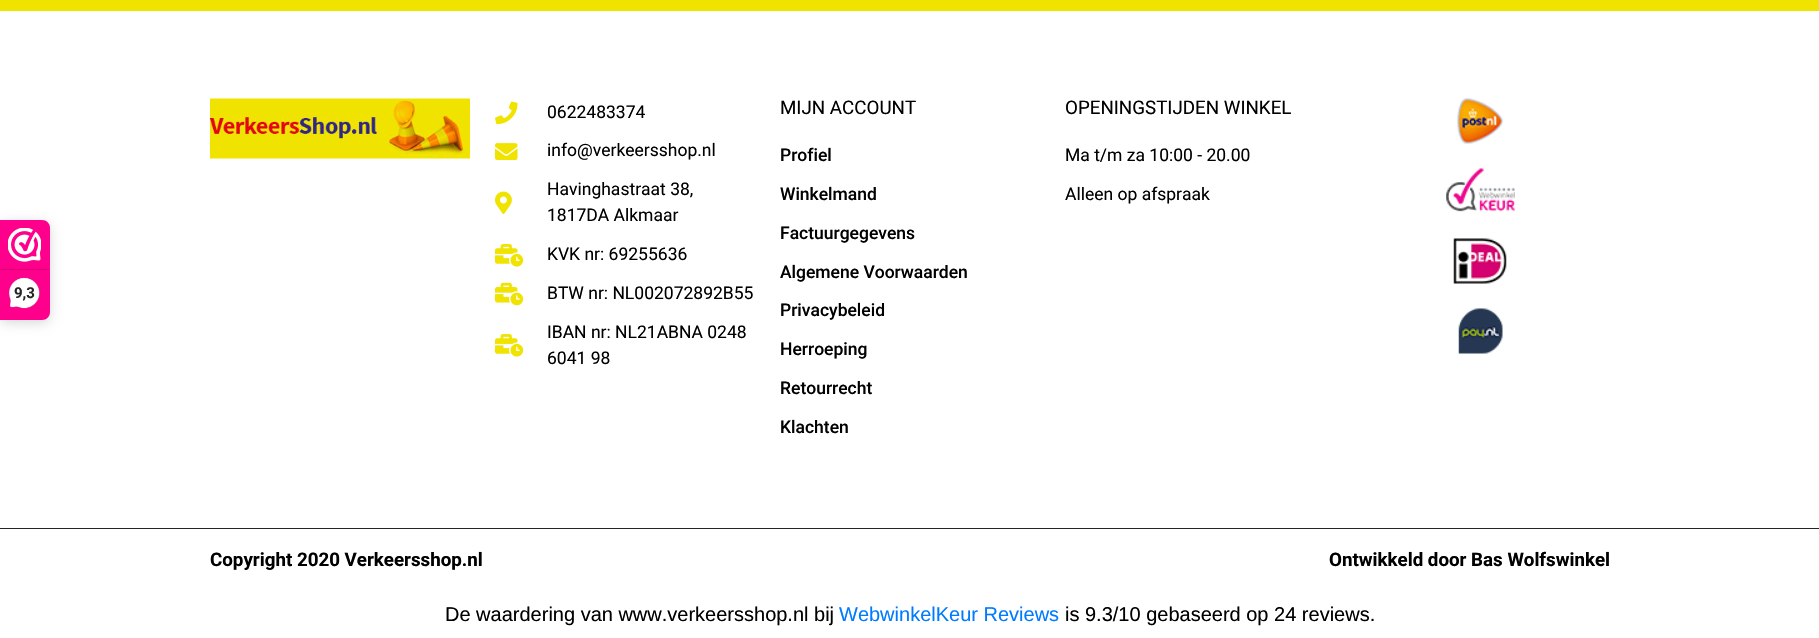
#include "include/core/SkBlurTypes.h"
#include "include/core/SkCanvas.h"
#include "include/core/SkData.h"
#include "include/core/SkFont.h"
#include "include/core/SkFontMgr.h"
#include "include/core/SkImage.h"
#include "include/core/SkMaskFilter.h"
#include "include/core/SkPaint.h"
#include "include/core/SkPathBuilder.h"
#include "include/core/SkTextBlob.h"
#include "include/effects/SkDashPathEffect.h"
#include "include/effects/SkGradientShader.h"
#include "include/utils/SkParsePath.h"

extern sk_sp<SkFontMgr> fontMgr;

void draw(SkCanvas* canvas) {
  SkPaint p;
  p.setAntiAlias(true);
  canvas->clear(SK_ColorWHITE);
  p.setColor(SkColorSetARGB(38, 0, 0, 0));
  p.setMaskFilter(SkMaskFilter::MakeBlur(kNormal_SkBlurStyle, 6));
  canvas->drawRoundRect(SkRect::MakeLTRB(0, 223, 50, 323), 8, 8, p);
  p.setMaskFilter(nullptr);
  p.setColor(SkColorSetRGB(254, 0, 140));
  canvas->drawPath(SkPathBuilder().moveTo(0, 220).lineTo(42, 220).cubicTo(46.5f, 220, 50, 223.5f, 50, 228).lineTo(50, 312).cubicTo(50, 316.5f, 46.5f, 320, 42, 320).lineTo(0, 320).close().detach(), p);
  canvas->drawImageRect(SkImages::DeferredFromEncodedData(SkData::MakeFromFileName("images/1.png")), SkRect::MakeLTRB(8, 228, 41, 262), SkSamplingOptions());
  p.setColor(SkColorSetRGB(216, 0, 119));
  canvas->drawRect(SkRect::MakeLTRB(0, 269, 49, 270), p);
  canvas->drawImageRect(SkImages::DeferredFromEncodedData(SkData::MakeFromFileName("images/2.png")), SkRect::MakeLTRB(9, 277, 40, 309), SkSamplingOptions());
  p.setColor(SkColorSetRGB(240, 227, 0));
  canvas->drawRect(SkRect::MakeLTRB(0, 0, 1819, 11), p);
  canvas->drawImageRect(SkImages::DeferredFromEncodedData(SkData::MakeFromFileName("images/3.png")), SkRect::MakeLTRB(210, 98, 470, 159), SkSamplingOptions());
  canvas->drawImageRect(SkImages::DeferredFromEncodedData(SkData::MakeFromFileName("images/4.png")), SkRect::MakeLTRB(495, 101, 518, 125), SkSamplingOptions());
  canvas->drawImageRect(SkImages::DeferredFromEncodedData(SkData::MakeFromFileName("images/5.png")), SkRect::MakeLTRB(495, 143, 518, 160), SkSamplingOptions());
  canvas->drawImageRect(SkImages::DeferredFromEncodedData(SkData::MakeFromFileName("images/6.png")), SkRect::MakeLTRB(495, 191, 512, 214), SkSamplingOptions());
  canvas->drawImageRect(SkImages::DeferredFromEncodedData(SkData::MakeFromFileName("images/7.png")), SkRect::MakeLTRB(495, 244, 524, 267), SkSamplingOptions());
  canvas->drawImageRect(SkImages::DeferredFromEncodedData(SkData::MakeFromFileName("images/8.png")), SkRect::MakeLTRB(495, 282, 524, 306), SkSamplingOptions());
  canvas->drawImageRect(SkImages::DeferredFromEncodedData(SkData::MakeFromFileName("images/7.png")), SkRect::MakeLTRB(495, 334, 524, 357), SkSamplingOptions());
  canvas->drawImageRect(SkImages::DeferredFromEncodedData(SkData::MakeFromFileName("images/9.png")), SkRect::MakeLTRB(1457, 98, 1503, 144), SkSamplingOptions());
  canvas->drawImageRect(SkImages::DeferredFromEncodedData(SkData::MakeFromFileName("images/10.png")), SkRect::MakeLTRB(1446, 168, 1515, 212), SkSamplingOptions());
  canvas->drawImageRect(SkImages::DeferredFromEncodedData(SkData::MakeFromFileName("images/11.png")), SkRect::MakeLTRB(1453, 238, 1507, 284), SkSamplingOptions());
  canvas->drawImageRect(SkImages::DeferredFromEncodedData(SkData::MakeFromFileName("images/12.png")), SkRect::MakeLTRB(1458, 308, 1503, 354), SkSamplingOptions());
  p.setColor(SkColorSetRGB(33, 37, 41));
  canvas->drawRect(SkRect::MakeLTRB(0, 528, 1819, 529), p);
  SkFont font1(fontMgr->matchFamilyStyle("Roboto", SkFontStyle::Bold()), 15);
  font1.setSubpixel(true);
  p.setColor(SkColorSetRGB(39, 38, 38));
  canvas->drawString("9,3", 14, 298, font1, p);
  SkFont font2(fontMgr->matchFamilyStyle("Roboto", SkFontStyle::Normal()), 17.5f);
  font2.setSubpixel(true);
  p.setColor(SK_ColorBLACK);
  canvas->drawString("0622483374", 547, 118, font2, p);
  canvas->drawString("info@verkeersshop.nl", 547, 156, font2, p);
  canvas->drawString("Havinghastraat 38,", 547, 195, font2, p);
  canvas->drawString("1817DA Alkmaar", 547, 221, font2, p);
  canvas->drawString("KVK nr: 69255636", 547, 260, font2, p);
  canvas->drawString("BTW nr: NL002072892B55", 547, 299, font2, p);
  canvas->drawString("IBAN nr: NL21ABNA 0248", 547, 338, font2, p);
  canvas->drawString("6041 98", 547, 364, font2, p);
  SkFont font3(fontMgr->matchFamilyStyle("Roboto", SkFontStyle::Normal()), 18.75f);
  font3.setSubpixel(true);
  canvas->drawString("MIJN ACCOUNT", 780, 114, font3, p);
  SkFont font4(fontMgr->matchFamilyStyle("Roboto", SkFontStyle(500, SkFontStyle::kNormal_Width, SkFontStyle::kUpright_Slant)), 17.5f);
  font4.setSubpixel(true);
  canvas->drawString("Profiel", 780, 161, font4, p);
  canvas->drawString("Winkelmand", 780, 200, font4, p);
  canvas->drawString("Factuurgegevens", 780, 239, font4, p);
  canvas->drawString("Algemene Voorwaarden", 780, 278, font4, p);
  canvas->drawString("Privacybeleid", 780, 316, font4, p);
  canvas->drawString("Herroeping", 780, 355, font4, p);
  canvas->drawString("Retourrecht", 780, 394, font4, p);
  canvas->drawString("Klachten", 780, 433, font4, p);
  canvas->drawString("OPENINGSTIJDEN WINKEL", 1065, 114, font3, p);
  canvas->drawString("Ma t/m za 10:00 - 20.00", 1065, 161, font2, p);
  canvas->drawString("Alleen op afspraak", 1065, 200, font2, p);
  SkFont font5(fontMgr->matchFamilyStyle("Roboto", SkFontStyle::Bold()), 18.75f);
  font5.setSubpixel(true);
  canvas->drawString("Copyright 2020 Verkeersshop.nl", 210, 566, font5, p);
  canvas->drawString("Ontwikkeld door Bas Wolfswinkel", 1329, 566, font5, p);
  SkFont font6(fontMgr->matchFamilyStyle("Liberation Sans", SkFontStyle::Normal()), 20);
  font6.setSubpixel(true);
  canvas->drawString("De waardering van www.verkeersshop.nl bij", 445, 621, font6, p);
  p.setColor(SkColorSetRGB(0, 123, 255));
  canvas->drawString("WebwinkelKeur Reviews", 839, 621, font6, p);
  p.setColor(SK_ColorBLACK);
  canvas->drawString("is 9.3/10 gebaseerd op 24 reviews.", 1065, 621, font6, p);
}
